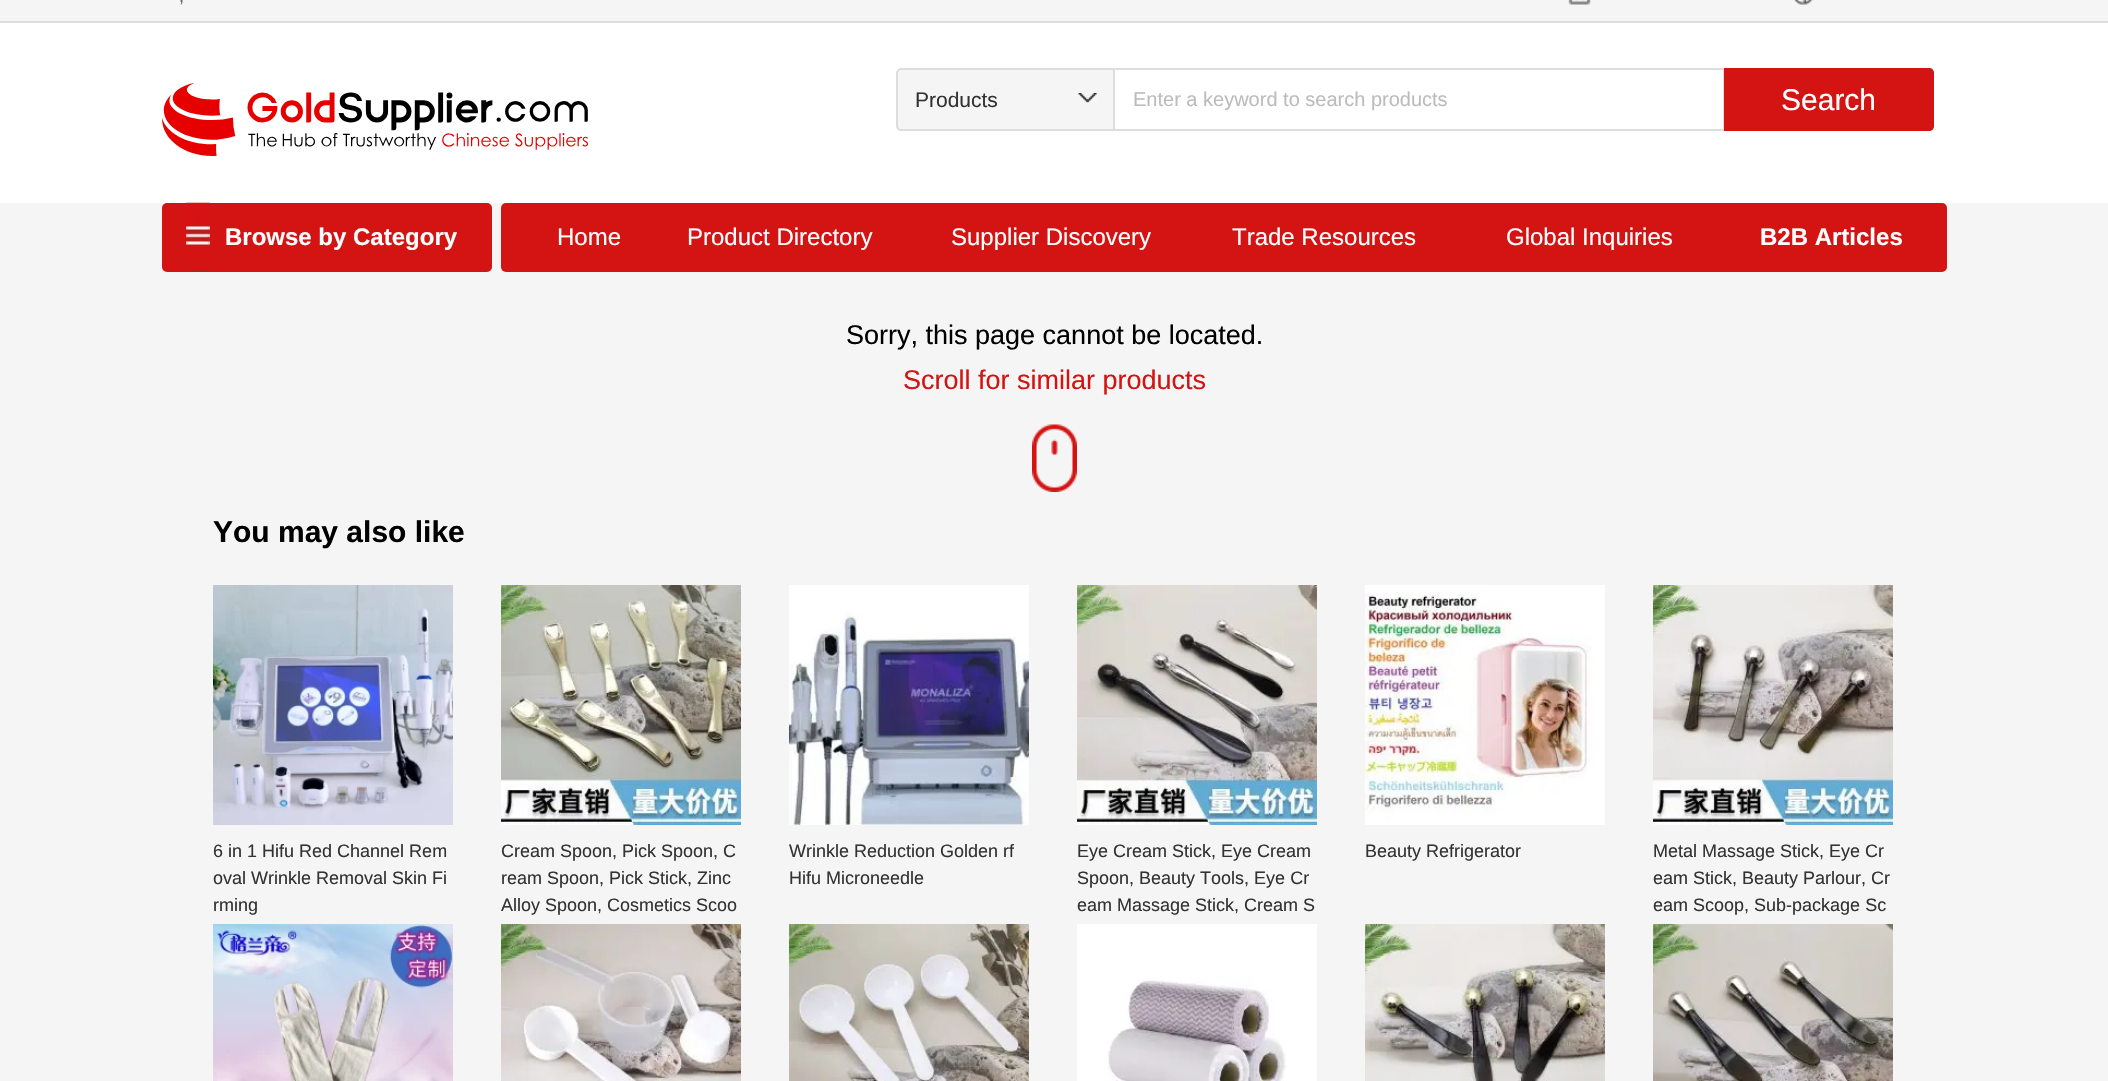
#include "include/core/SkBlurTypes.h"
#include "include/core/SkCanvas.h"
#include "include/core/SkData.h"
#include "include/core/SkFont.h"
#include "include/core/SkFontMgr.h"
#include "include/core/SkImage.h"
#include "include/core/SkMaskFilter.h"
#include "include/core/SkPaint.h"
#include "include/core/SkPathBuilder.h"
#include "include/core/SkTextBlob.h"
#include "include/effects/SkDashPathEffect.h"
#include "include/effects/SkGradientShader.h"
#include "include/utils/SkParsePath.h"

extern sk_sp<SkFontMgr> fontMgr;

void draw(SkCanvas* canvas) {
  SkPaint p;
  p.setAntiAlias(true);
  canvas->clear(SkColorSetRGB(245, 245, 245));
  p.setColor(SkColorSetRGB(221, 221, 221));
  canvas->drawRect(SkRect::MakeLTRB(0, 21, 2108, 23), p);
  canvas->drawImageRect(SkImages::DeferredFromEncodedData(SkData::MakeFromFileName("images/1.png")), SkRect::MakeLTRB(1568, 0, 1591, 5), SkSamplingOptions());
  canvas->drawImageRect(SkImages::DeferredFromEncodedData(SkData::MakeFromFileName("images/2.png")), SkRect::MakeLTRB(1794, 0, 1813, 5), SkSamplingOptions());
  p.setColor(SK_ColorWHITE);
  canvas->drawRect(SkRect::MakeLTRB(0, 23, 2108, 203), p);
  canvas->drawImageRect(SkImages::DeferredFromEncodedData(SkData::MakeFromFileName("images/3.png")), SkRect::MakeLTRB(162, 83, 588, 156), SkSamplingOptions());
  p.setStyle(SkPaint::kStroke_Style);
  p.setStrokeWidth(2);
  p.setColor(SkColorSetRGB(221, 221, 221));
  canvas->drawRect(SkRect::MakeLTRB(1114, 69, 1724, 130), p);
  p.setStyle(SkPaint::kFill_Style);
  p.setColor(SkColorSetRGB(245, 245, 245));
  canvas->drawPath(SkPathBuilder().moveTo(901, 69).lineTo(1114, 69).lineTo(1114, 130).lineTo(901, 130).cubicTo(899, 130, 897, 128, 897, 126).lineTo(897, 73).cubicTo(897, 71, 899, 69, 901, 69).close().detach(), p);
  p.setStyle(SkPaint::kStroke_Style);
  p.setColor(SkColorSetRGB(221, 221, 221));
  canvas->drawPath(SkPathBuilder().moveTo(901, 69).lineTo(1114, 69).lineTo(1114, 130).lineTo(901, 130).cubicTo(899, 130, 897, 128, 897, 126).lineTo(897, 73).cubicTo(897, 71, 899, 69, 901, 69).close().detach(), p);
  canvas->drawImageRect(SkImages::DeferredFromEncodedData(SkData::MakeFromFileName("images/4.png")), SkRect::MakeLTRB(1078, 93, 1098, 103), SkSamplingOptions());
  p.setStyle(SkPaint::kFill_Style);
  p.setColor(SkColorSetRGB(212, 19, 19));
  canvas->drawPath(SkPathBuilder().moveTo(1724, 68).lineTo(1929, 68).cubicTo(1932, 68, 1934, 70, 1934, 73).lineTo(1934, 126).cubicTo(1934, 129, 1932, 131, 1929, 131).lineTo(1724, 131).close().detach(), p);
  canvas->drawRoundRect(SkRect::MakeLTRB(162, 203, 492, 272), 5, 5, p);
  canvas->drawImageRect(SkImages::DeferredFromEncodedData(SkData::MakeFromFileName("images/5.png")), SkRect::MakeLTRB(186, 202, 210, 272), SkSamplingOptions());
  canvas->drawRoundRect(SkRect::MakeLTRB(501, 203, 1947, 272), 5, 5, p);
  canvas->drawImageRect(SkImages::DeferredFromEncodedData(SkData::MakeFromFileName("images/6.png")), SkRect::MakeLTRB(1032, 424, 1077, 492), SkSamplingOptions());
  canvas->drawImageRect(SkImages::DeferredFromEncodedData(SkData::MakeFromFileName("images/7.png")), SkRect::MakeLTRB(213, 585, 453, 825), SkSamplingOptions());
  canvas->drawImageRect(SkImages::DeferredFromEncodedData(SkData::MakeFromFileName("images/8.png")), SkRect::MakeLTRB(501, 585, 741, 825), SkSamplingOptions());
  canvas->drawImageRect(SkImages::DeferredFromEncodedData(SkData::MakeFromFileName("images/9.png")), SkRect::MakeLTRB(789, 585, 1029, 825), SkSamplingOptions());
  canvas->drawImageRect(SkImages::DeferredFromEncodedData(SkData::MakeFromFileName("images/10.png")), SkRect::MakeLTRB(1077, 585, 1317, 825), SkSamplingOptions());
  canvas->drawImageRect(SkImages::DeferredFromEncodedData(SkData::MakeFromFileName("images/11.png")), SkRect::MakeLTRB(1365, 585, 1605, 825), SkSamplingOptions());
  canvas->drawImageRect(SkImages::DeferredFromEncodedData(SkData::MakeFromFileName("images/12.png")), SkRect::MakeLTRB(1653, 585, 1893, 825), SkSamplingOptions());
  canvas->drawImageRect(SkImages::DeferredFromEncodedData(SkData::MakeFromFileName("images/13.png")), SkRect::MakeLTRB(213, 924, 453, 1081), SkSamplingOptions());
  canvas->drawImageRect(SkImages::DeferredFromEncodedData(SkData::MakeFromFileName("images/14.png")), SkRect::MakeLTRB(501, 924, 741, 1081), SkSamplingOptions());
  canvas->drawImageRect(SkImages::DeferredFromEncodedData(SkData::MakeFromFileName("images/15.png")), SkRect::MakeLTRB(789, 924, 1029, 1081), SkSamplingOptions());
  canvas->drawImageRect(SkImages::DeferredFromEncodedData(SkData::MakeFromFileName("images/16.png")), SkRect::MakeLTRB(1077, 924, 1317, 1081), SkSamplingOptions());
  canvas->drawImageRect(SkImages::DeferredFromEncodedData(SkData::MakeFromFileName("images/17.png")), SkRect::MakeLTRB(1365, 924, 1605, 1081), SkSamplingOptions());
  canvas->drawImageRect(SkImages::DeferredFromEncodedData(SkData::MakeFromFileName("images/18.png")), SkRect::MakeLTRB(1653, 924, 1893, 1081), SkSamplingOptions());
  SkFont font1(fontMgr->matchFamilyStyle("Liberation Sans", SkFontStyle::Normal()), 18);
  font1.setSubpixel(true);
  p.setColor(SkColorSetRGB(102, 102, 102));
  canvas->drawString(",", 179, 2, font1, p);
  SkFont font2(fontMgr->matchFamilyStyle("Liberation Sans", SkFontStyle::Normal()), 21);
  font2.setSubpixel(true);
  p.setColor(SkColorSetRGB(51, 51, 51));
  canvas->drawString("Products", 915, 107, font2, p);
  SkFont font3(fontMgr->matchFamilyStyle("Liberation Sans", SkFontStyle::Normal()), 20);
  font3.setSubpixel(true);
  p.setColor(SkColorSetRGB(188, 188, 188));
  canvas->drawString("Enter a keyword to search products", 1133, 106, font3, p);
  SkFont font4(fontMgr->matchFamilyStyle("Liberation Sans", SkFontStyle::Normal()), 30);
  font4.setSubpixel(true);
  p.setColor(SK_ColorWHITE);
  canvas->drawString("Search", 1781, 110, font4, p);
  SkFont font5(fontMgr->matchFamilyStyle("Liberation Sans", SkFontStyle::Bold()), 24);
  font5.setSubpixel(true);
  canvas->drawString("Browse by Category", 225, 245, font5, p);
  SkFont font6(fontMgr->matchFamilyStyle("Liberation Sans", SkFontStyle::Normal()), 24);
  font6.setSubpixel(true);
  canvas->drawString("Home", 557, 245, font6, p);
  canvas->drawString("Product Directory", 687, 245, font6, p);
  canvas->drawString("Supplier Discovery", 951, 245, font6, p);
  canvas->drawString("Trade Resources", 1232, 245, font6, p);
  canvas->drawString("Global Inquiries", 1506, 245, font6, p);
  canvas->drawString("B2B Articles", 1760, 245, font5, p);
  SkFont font7(fontMgr->matchFamilyStyle("Liberation Sans", SkFontStyle::Normal()), 27);
  font7.setSubpixel(true);
  p.setColor(SK_ColorBLACK);
  canvas->drawString("Sorry, this page cannot be located.", 846, 344, font7, p);
  p.setColor(SkColorSetRGB(212, 19, 19));
  canvas->drawString("Scroll for similar products", 903, 389, font7, p);
  SkFont font8(fontMgr->matchFamilyStyle("Liberation Sans", SkFontStyle::Bold()), 30);
  font8.setSubpixel(true);
  p.setColor(SK_ColorBLACK);
  canvas->drawString("You may also like", 213, 542, font8, p);
  p.setColor(SkColorSetRGB(51, 51, 51));
  canvas->drawString("6 in 1 Hifu Red Channel Rem", 213, 857, font1, p);
  canvas->drawString("oval Wrinkle Removal Skin Fi", 213, 884, font1, p);
  canvas->drawString("rming", 213, 911, font1, p);
  canvas->drawString("Cream Spoon, Pick Spoon, C", 501, 857, font1, p);
  canvas->drawString("ream Spoon, Pick Stick, Zinc", 501, 884, font1, p);
  canvas->drawString("Alloy Spoon, Cosmetics Scoo", 501, 911, font1, p);
  canvas->drawString("Wrinkle Reduction Golden rf", 789, 857, font1, p);
  canvas->drawString("Hifu Microneedle", 789, 884, font1, p);
  canvas->drawString("Eye Cream Stick, Eye Cream", 1077, 857, font1, p);
  canvas->drawString("Spoon, Beauty Tools, Eye Cr", 1077, 884, font1, p);
  canvas->drawString("eam Massage Stick, Cream S", 1077, 911, font1, p);
  canvas->drawString("Beauty Refrigerator", 1365, 857, font1, p);
  canvas->drawString("Metal Massage Stick, Eye Cr", 1653, 857, font1, p);
  canvas->drawString("eam Stick, Beauty Parlour, Cr", 1653, 884, font1, p);
  canvas->drawString("eam Scoop, Sub-package Sc", 1653, 911, font1, p);
}
